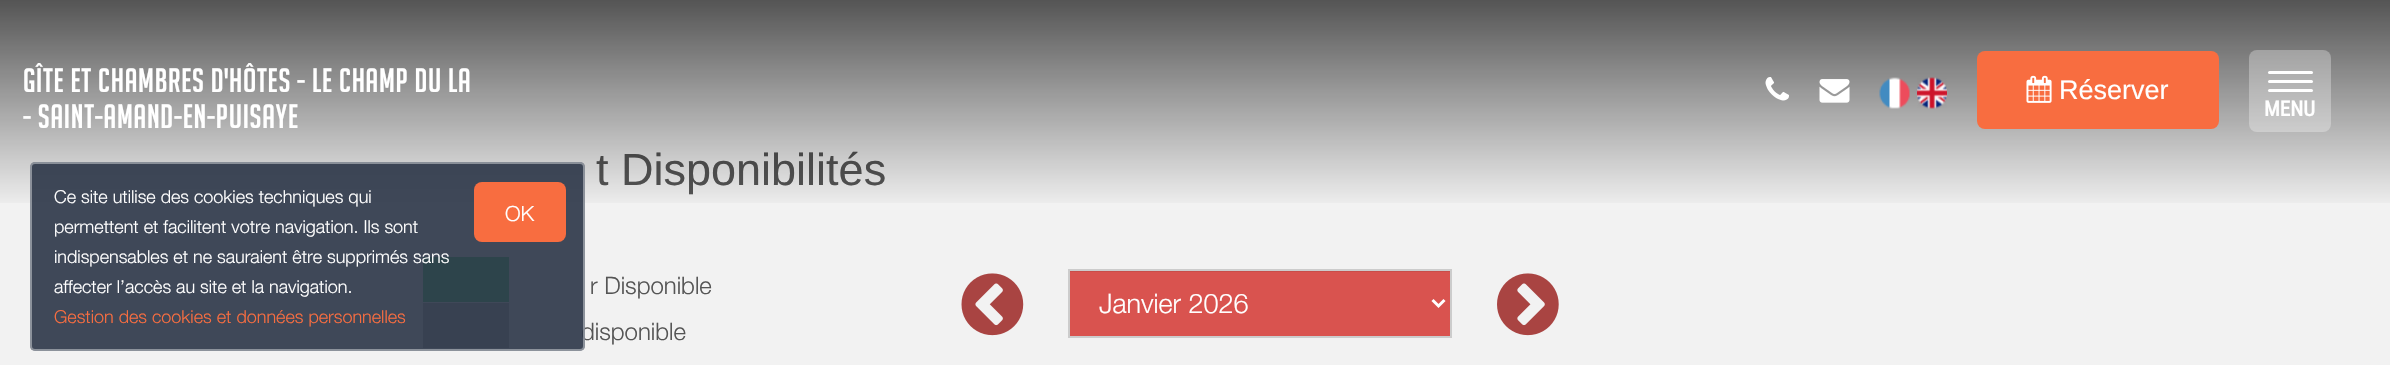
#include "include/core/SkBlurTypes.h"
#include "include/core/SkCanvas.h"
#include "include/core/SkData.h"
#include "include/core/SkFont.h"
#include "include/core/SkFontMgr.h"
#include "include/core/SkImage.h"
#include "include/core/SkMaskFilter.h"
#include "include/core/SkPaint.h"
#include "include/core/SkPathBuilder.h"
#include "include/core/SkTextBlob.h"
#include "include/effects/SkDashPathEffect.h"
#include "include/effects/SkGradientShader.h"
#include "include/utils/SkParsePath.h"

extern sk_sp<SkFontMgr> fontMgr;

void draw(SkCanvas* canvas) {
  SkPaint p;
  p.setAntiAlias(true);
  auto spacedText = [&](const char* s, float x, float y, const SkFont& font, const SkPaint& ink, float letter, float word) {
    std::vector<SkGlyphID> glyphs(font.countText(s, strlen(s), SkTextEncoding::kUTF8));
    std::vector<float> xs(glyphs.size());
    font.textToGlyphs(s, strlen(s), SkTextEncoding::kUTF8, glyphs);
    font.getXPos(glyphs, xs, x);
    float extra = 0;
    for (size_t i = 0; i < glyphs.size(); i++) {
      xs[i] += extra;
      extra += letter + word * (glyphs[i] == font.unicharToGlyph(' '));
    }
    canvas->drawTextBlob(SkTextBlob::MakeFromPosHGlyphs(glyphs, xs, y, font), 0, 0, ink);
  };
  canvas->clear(SkColorSetRGB(242, 242, 242));
  p.setColor(SkColorSetRGB(55, 196, 104));
  canvas->drawRect(SkRect::MakeLTRB(423, 257, 509, 302), p);
  p.setColor(SkColorSetRGB(167, 167, 167));
  canvas->drawRect(SkRect::MakeLTRB(423, 303, 509, 348), p);
  canvas->drawImageRect(SkImages::DeferredFromEncodedData(SkData::MakeFromFileName("images/6.png")), SkRect::MakeLTRB(961, 273, 1024, 336), SkSamplingOptions());
  p.setColor(SkColorSetRGB(217, 83, 79));
  canvas->drawRect(SkRect::MakeLTRB(1070, 272, 1450, 336), p);
  p.setColor(SkColorSetRGB(201, 77, 73));
  canvas->drawRect(SkRect::MakeLTRB(1070, 271, 1451, 272), p);
  p.setStyle(SkPaint::kStroke_Style);
  p.setStrokeWidth(2);
  p.setColor(SkColorSetRGB(204, 204, 204));
  canvas->drawRect(SkRect::MakeLTRB(1069, 270, 1451, 337), p);
  p.setStrokeWidth(3);
  p.setColor(SK_ColorWHITE);
  canvas->drawPath(SkPathBuilder().moveTo(1432.5f, 300).lineTo(1438.5f, 306).lineTo(1444.5f, 300).detach(), p);
  canvas->drawImageRect(SkImages::DeferredFromEncodedData(SkData::MakeFromFileName("images/7.png")), SkRect::MakeLTRB(1497, 273, 1559, 336), SkSamplingOptions());
  SkFont font1(fontMgr->matchFamilyStyle("Liberation Sans", SkFontStyle::Normal()), 45);
  font1.setSubpixel(true);
  p.setStyle(SkPaint::kFill_Style);
  p.setColor(SkColorSetRGB(85, 85, 85));
  canvas->drawString("t Disponibilités", 596, 185, font1, p);
  {
    const SkColor colors[] = {SkColorSetARGB(166, 0, 0, 0), SkColorSetARGB(0, 0, 0, 0)};
    const float stops[] = {0, 1};
    const SkPoint ends[] = {{1196, 0}, {1196, 210}};
    p.setShader(SkGradientShader::MakeLinear(ends, colors, stops, 2, SkTileMode::kClamp));
    p.setAlpha(255);
  }
  canvas->drawRect(SkRect::MakeLTRB(0, 0, 2390, 203), p);
  p.setShader(nullptr);
  p.setColor(SkColorSetRGB(248, 109, 64));
  canvas->drawRoundRect(SkRect::MakeLTRB(1977, 51, 2219, 129), 8, 8, p);
  SkFont font2(fontMgr->matchFamilyStyle("Liberation Sans", SkFontStyle::Normal()), 27);
  font2.setSubpixel(true);
  p.setColor(SK_ColorWHITE);
  canvas->drawString("Réserver", 2059, 99, font2, p);
  canvas->drawImageRect(SkImages::DeferredFromEncodedData(SkData::MakeFromFileName("images/5.png")), SkRect::MakeLTRB(2026, 75, 2052, 103), SkSamplingOptions());
  p.setColor(SkColorSetARGB(77, 255, 255, 255));
  canvas->drawRoundRect(SkRect::MakeLTRB(2249, 50, 2331, 132), 8, 8, p);
  SkFont font3(fontMgr->matchFamilyStyle("Roboto Condensed", SkFontStyle::Bold()), 21);
  font3.setSubpixel(true);
  p.setColor(SK_ColorWHITE);
  canvas->drawString("MENU", 2264, 116, font3, p);
  canvas->drawRoundRect(SkRect::MakeLTRB(2268, 89, 2313, 92), 1.5f, 1.5f, p);
  canvas->drawRoundRect(SkRect::MakeLTRB(2268, 80, 2313, 83), 1.5f, 1.5f, p);
  canvas->drawRoundRect(SkRect::MakeLTRB(2268, 71, 2313, 74), 1.5f, 1.5f, p);
  canvas->drawImageRect(SkImages::DeferredFromEncodedData(SkData::MakeFromFileName("images/1.png")), SkRect::MakeLTRB(1765, 77, 1789, 101), SkSamplingOptions());
  canvas->drawImageRect(SkImages::DeferredFromEncodedData(SkData::MakeFromFileName("images/4.png")), SkRect::MakeLTRB(1917, 77, 1947, 109), SkSamplingOptions());
  canvas->drawImageRect(SkImages::DeferredFromEncodedData(SkData::MakeFromFileName("images/3.png")), SkRect::MakeLTRB(1879, 77, 1910, 109), SkSamplingOptions());
  canvas->drawImageRect(SkImages::DeferredFromEncodedData(SkData::MakeFromFileName("images/2.png")), SkRect::MakeLTRB(1819, 79, 1850, 103), SkSamplingOptions());
  SkFont font4(fontMgr->matchFamilyStyle("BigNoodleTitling", SkFontStyle::Normal()), 33);
  font4.setSubpixel(true);
  spacedText("- SAINT-AMAND-EN-PUISAYE", 23, 128, font4, p, 0.75f, 0);
  spacedText("GÎTE ET CHAMBRES D'HÔTES - LE CHAMP DU LA", 23, 92, font4, p, 0.75f, 0);
  SkFont font5(fontMgr->matchFamilyStyle("Helvetica Neue", SkFontStyle(300, SkFontStyle::kNormal_Width, SkFontStyle::kUpright_Slant)), 24);
  font5.setSubpixel(true);
  p.setColor(SkColorSetRGB(85, 85, 85));
  canvas->drawString("r Disponible", 590, 294, font5, p);
  canvas->drawString("disponible", 581, 340, font5, p);
  p.setColor(SkColorSetARGB(230, 43, 53, 71));
  canvas->drawRoundRect(SkRect::MakeLTRB(30, 162, 585, 351), 5, 5, p);
  p.setStyle(SkPaint::kStroke_Style);
  p.setStrokeWidth(2);
  p.setColor(SkColorSetARGB(102, 255, 255, 255));
  canvas->drawRoundRect(SkRect::MakeLTRB(31, 163, 584, 350), 4, 4, p);
  p.setStyle(SkPaint::kFill_Style);
  p.setColor(SkColorSetRGB(248, 109, 64));
  canvas->drawRoundRect(SkRect::MakeLTRB(474, 182, 566, 242), 8, 8, p);
  SkFont font6(fontMgr->matchFamilyStyle("Helvetica Neue", SkFontStyle(300, SkFontStyle::kNormal_Width, SkFontStyle::kUpright_Slant)), 21);
  font6.setSubpixel(true);
  p.setColor(SK_ColorWHITE);
  canvas->drawString("OK", 505, 221, font6, p);
  SkFont font7(fontMgr->matchFamilyStyle("Helvetica Neue", SkFontStyle(300, SkFontStyle::kNormal_Width, SkFontStyle::kUpright_Slant)), 18);
  font7.setSubpixel(true);
  p.setColor(SkColorSetRGB(248, 109, 64));
  canvas->drawString("Gestion des cookies et données personnelles", 54, 323, font7, p);
  p.setColor(SK_ColorWHITE);
  canvas->drawString("affecter l’accès au site et la navigation.", 54, 293, font7, p);
  canvas->drawString("indispensables et ne sauraient être supprimés sans", 54, 263, font7, p);
  canvas->drawString("permettent et facilitent votre navigation. Ils sont", 54, 233, font7, p);
  canvas->drawString("Ce site utilise des cookies techniques qui", 54, 203, font7, p);
  SkFont font8(fontMgr->matchFamilyStyle("Helvetica Neue", SkFontStyle(300, SkFontStyle::kNormal_Width, SkFontStyle::kUpright_Slant)), 27);
  font8.setSubpixel(true);
  canvas->drawString("Janvier 2026", 1099, 313, font8, p);
}
